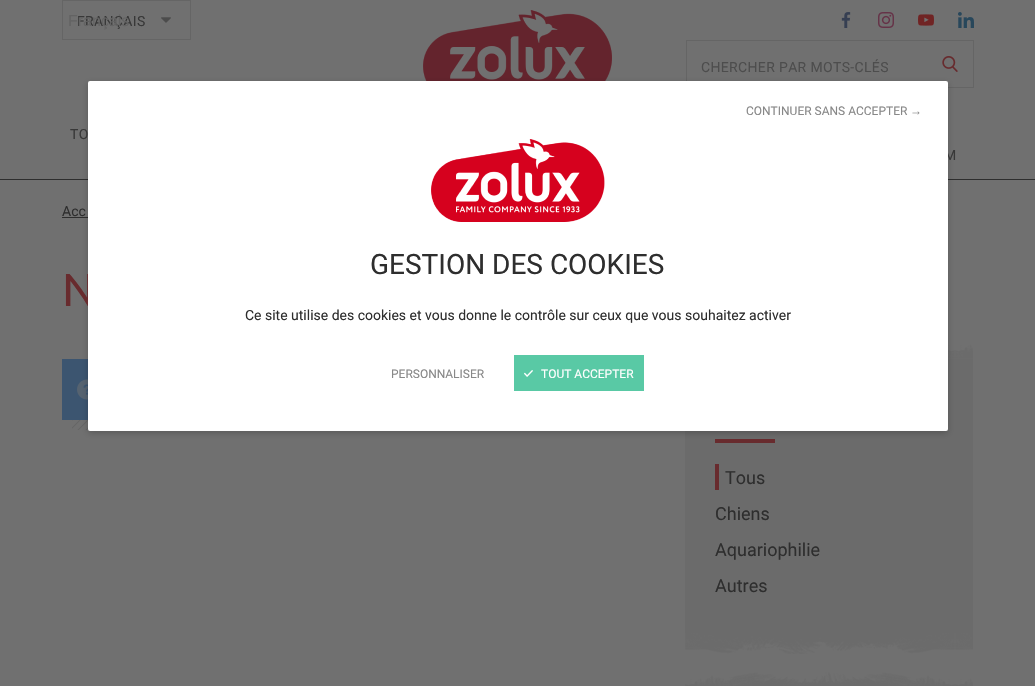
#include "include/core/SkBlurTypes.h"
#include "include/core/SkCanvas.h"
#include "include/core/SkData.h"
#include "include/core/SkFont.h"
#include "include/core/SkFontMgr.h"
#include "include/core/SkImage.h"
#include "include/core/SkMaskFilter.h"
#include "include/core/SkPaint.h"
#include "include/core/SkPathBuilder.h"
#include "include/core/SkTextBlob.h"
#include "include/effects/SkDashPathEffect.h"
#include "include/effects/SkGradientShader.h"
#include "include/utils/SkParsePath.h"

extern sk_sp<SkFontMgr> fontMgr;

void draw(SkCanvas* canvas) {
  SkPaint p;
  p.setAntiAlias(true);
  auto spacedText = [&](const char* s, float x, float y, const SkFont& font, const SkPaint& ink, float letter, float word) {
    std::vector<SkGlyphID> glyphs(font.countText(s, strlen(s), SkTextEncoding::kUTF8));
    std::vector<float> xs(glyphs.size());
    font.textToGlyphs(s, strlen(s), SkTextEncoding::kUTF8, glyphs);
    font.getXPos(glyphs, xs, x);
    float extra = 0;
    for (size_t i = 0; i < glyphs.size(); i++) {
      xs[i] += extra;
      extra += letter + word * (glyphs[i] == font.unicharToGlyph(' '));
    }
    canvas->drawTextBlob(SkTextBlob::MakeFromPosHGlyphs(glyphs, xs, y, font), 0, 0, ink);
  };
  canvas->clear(SkColorSetRGB(112, 112, 112));
  p.setColor(SkColorSetRGB(46, 46, 46));
  canvas->drawRect(SkRect::MakeLTRB(0, 179, 1035, 180), p);
  canvas->drawImageRect(SkImages::DeferredFromEncodedData(SkData::MakeFromFileName("images/1.png")), SkRect::MakeLTRB(423, 10, 612, 81), SkSamplingOptions());
  p.setStyle(SkPaint::kStroke_Style);
  p.setStrokeWidth(1);
  p.setColor(SkColorSetRGB(101, 101, 101));
  canvas->drawRect(SkRect::MakeLTRB(62.5f, 0.5f, 190.5f, 39.5f), p);
  canvas->drawImageRect(SkImages::DeferredFromEncodedData(SkData::MakeFromFileName("images/2.png")), SkRect::MakeLTRB(161, 17, 171, 23), SkSamplingOptions());
  canvas->drawImageRect(SkImages::DeferredFromEncodedData(SkData::MakeFromFileName("images/3.png")), SkRect::MakeLTRB(841, 12, 851, 28), SkSamplingOptions());
  canvas->drawImageRect(SkImages::DeferredFromEncodedData(SkData::MakeFromFileName("images/4.png")), SkRect::MakeLTRB(878, 12, 894, 28), SkSamplingOptions());
  canvas->drawImageRect(SkImages::DeferredFromEncodedData(SkData::MakeFromFileName("images/5.png")), SkRect::MakeLTRB(918, 14, 934, 26), SkSamplingOptions());
  canvas->drawImageRect(SkImages::DeferredFromEncodedData(SkData::MakeFromFileName("images/6.png")), SkRect::MakeLTRB(958, 12, 974, 28), SkSamplingOptions());
  canvas->drawRect(SkRect::MakeLTRB(686.5f, 40.5f, 973.5f, 87.5f), p);
  canvas->drawImageRect(SkImages::DeferredFromEncodedData(SkData::MakeFromFileName("images/7.png")), SkRect::MakeLTRB(942, 56, 958, 72), SkSamplingOptions());
  p.setStyle(SkPaint::kFill_Style);
  p.setColor(SkColorSetRGB(46, 46, 46));
  canvas->drawRect(SkRect::MakeLTRB(62, 217, 88, 218), p);
  p.setColor(SkColorSetRGB(60, 85, 112));
  canvas->drawRect(SkRect::MakeLTRB(62, 359, 88, 420), p);
  canvas->drawImageRect(SkImages::DeferredFromEncodedData(SkData::MakeFromFileName("images/10.png")), SkRect::MakeLTRB(77, 379, 88, 400), SkSamplingOptions());
  canvas->drawImageRect(SkImages::DeferredFromEncodedData(SkData::MakeFromFileName("images/11.png")), SkRect::MakeLTRB(72, 420, 88, 430), SkSamplingOptions());
  p.setColor(SkColorSetRGB(107, 107, 107));
  canvas->drawRect(SkRect::MakeLTRB(685, 359, 973, 633), p);
  canvas->drawImageRect(SkImages::DeferredFromEncodedData(SkData::MakeFromFileName("images/12.png")), SkRect::MakeLTRB(948, 344, 973, 359), SkSamplingOptions());
  p.setColor(SkColorSetRGB(104, 43, 46));
  canvas->drawRect(SkRect::MakeLTRB(715, 439, 775, 443), p);
  p.setColor(SkColorSetARGB(51, 0, 0, 0));
  p.setMaskFilter(SkMaskFilter::MakeBlur(kNormal_SkBlurStyle, 3));
  canvas->drawRoundRect(SkRect::MakeLTRB(88, 83, 948, 433), 2, 2, p);
  p.setMaskFilter(nullptr);
  p.setColor(SkColorSetRGB(104, 43, 46));
  canvas->drawRect(SkRect::MakeLTRB(715, 464, 719, 490), p);
  canvas->drawImageRect(SkImages::DeferredFromEncodedData(SkData::MakeFromFileName("images/13.png")), SkRect::MakeLTRB(685, 633, 973, 654), SkSamplingOptions());
  canvas->drawImageRect(SkImages::DeferredFromEncodedData(SkData::MakeFromFileName("images/14.png")), SkRect::MakeLTRB(685, 672, 973, 686), SkSamplingOptions());
  SkFont font1(fontMgr->matchFamilyStyle("Roboto", SkFontStyle::Normal()), 14);
  font1.setSubpixel(true);
  p.setColor(SkColorSetRGB(56, 56, 56));
  spacedText("FRANÇAIS", 77, 26, font1, p, 0.35f, 0);
  SkFont font2(fontMgr->matchFamilyStyle("Liberation Sans", SkFontStyle::Normal()), 16);
  font2.setSubpixel(true);
  p.setColor(SkColorSetRGB(99, 99, 99));
  canvas->drawString("Français", 68, 26, font2, p);
  p.setColor(SkColorSetRGB(77, 77, 77));
  spacedText("CHERCHER PAR MOTS-CLÉS", 701, 72, font1, p, 0.35f, 0);
  p.setColor(SkColorSetRGB(56, 56, 56));
  spacedText("TO", 70, 139, font1, p, 0.35f, 0);
  spacedText("M", 944, 160, font1, p, 0.35f, 0);
  p.setColor(SkColorSetRGB(46, 46, 46));
  canvas->drawString("Acc", 62, 216, font1, p);
  SkFont font3(fontMgr->matchFamilyStyle("Ubuntu", SkFontStyle::Normal()), 46);
  font3.setSubpixel(true);
  p.setColor(SkColorSetRGB(104, 43, 46));
  canvas->drawString("N", 62, 306, font3, p);
  p.setColor(SK_ColorWHITE);
  canvas->drawRoundRect(SkRect::MakeLTRB(88, 81, 948, 431), 2, 2, p);
  SkFont font4(fontMgr->matchFamilyStyle("Liberation Sans", SkFontStyle::Normal()), 12);
  font4.setSubpixel(true);
  p.setColor(SkColorSetRGB(136, 136, 136));
  canvas->drawString("→", 910, 115, font4, p);
  SkFont font5(fontMgr->matchFamilyStyle("Roboto", SkFontStyle::Normal()), 12);
  font5.setSubpixel(true);
  canvas->drawString("CONTINUER SANS ACCEPTER", 746, 115, font5, p);
  p.setColor(SkColorSetRGB(89, 201, 165));
  canvas->drawRect(SkRect::MakeLTRB(514, 355, 644, 391), p);
  canvas->drawImageRect(SkImages::DeferredFromEncodedData(SkData::MakeFromFileName("images/8.png")), SkRect::MakeLTRB(524, 370, 533, 377), SkSamplingOptions());
  p.setColor(SK_ColorWHITE);
  canvas->drawString("TOUT ACCEPTER", 541, 378, font5, p);
  p.setColor(SkColorSetRGB(136, 136, 136));
  canvas->drawString("PERSONNALISER", 391, 378, font5, p);
  p.setColor(SkColorSetRGB(46, 46, 46));
  canvas->drawString("Ce site utilise des cookies et vous donne le contrôle sur ceux que vous souhaitez activer", 245, 320, font1, p);
  SkFont font6(fontMgr->matchFamilyStyle("Roboto", SkFontStyle::Normal()), 28);
  font6.setSubpixel(true);
  canvas->drawString("GESTION DES COOKIES", 370, 274, font6, p);
  canvas->drawImageRect(SkImages::DeferredFromEncodedData(SkData::MakeFromFileName("images/9.png")), SkRect::MakeLTRB(431, 139, 605, 222), SkSamplingOptions());
  SkFont font7(fontMgr->matchFamilyStyle("Roboto", SkFontStyle::Normal()), 18);
  font7.setSubpixel(true);
  canvas->drawString("Tous", 725, 484, font7, p);
  canvas->drawString("Chiens", 715, 520, font7, p);
  canvas->drawString("Aquariophilie", 715, 556, font7, p);
  canvas->drawString("Autres", 715, 592, font7, p);
}
